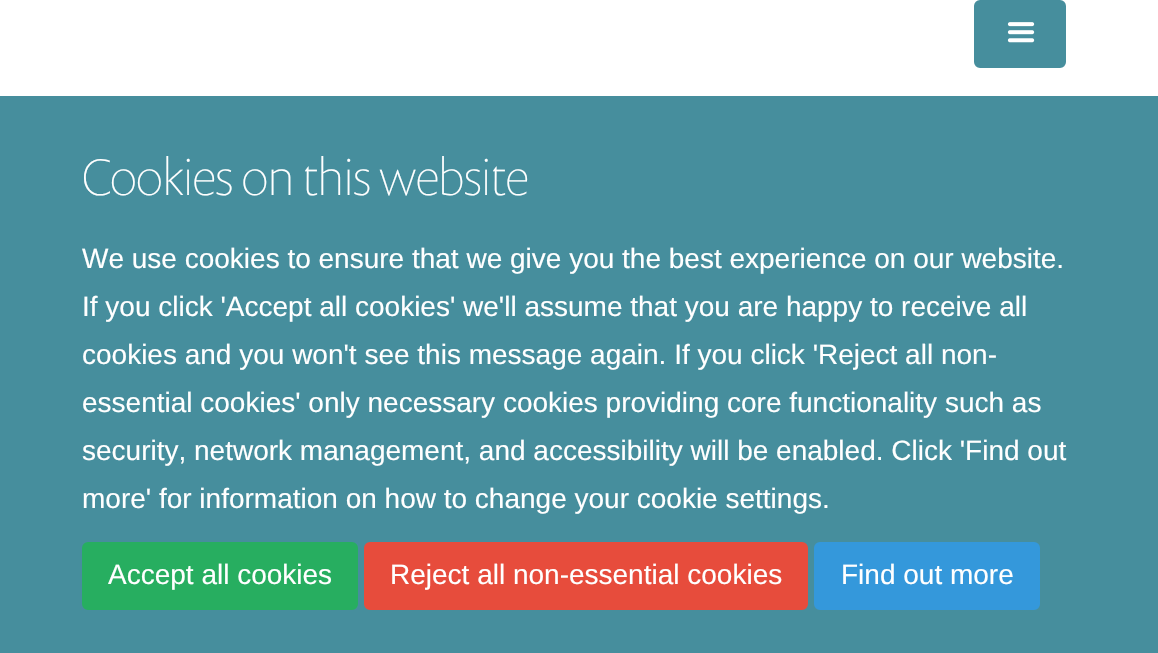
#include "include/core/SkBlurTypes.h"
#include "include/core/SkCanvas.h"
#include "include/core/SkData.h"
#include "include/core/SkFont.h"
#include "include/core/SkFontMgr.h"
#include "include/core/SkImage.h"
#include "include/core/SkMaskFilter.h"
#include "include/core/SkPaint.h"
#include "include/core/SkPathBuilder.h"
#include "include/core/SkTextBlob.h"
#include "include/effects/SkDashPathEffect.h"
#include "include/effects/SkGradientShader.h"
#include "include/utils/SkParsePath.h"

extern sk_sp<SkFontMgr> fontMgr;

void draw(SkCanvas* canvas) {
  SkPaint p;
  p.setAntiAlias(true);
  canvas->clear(SK_ColorWHITE);
  p.setColor(SkColorSetRGB(70, 142, 157));
  canvas->drawRoundRect(SkRect::MakeLTRB(975, 1, 1065, 67), 5, 5, p);
  p.setStyle(SkPaint::kStroke_Style);
  p.setStrokeWidth(2);
  canvas->drawRoundRect(SkRect::MakeLTRB(975, 1, 1065, 67), 5, 5, p);
  canvas->drawImageRect(SkImages::DeferredFromEncodedData(SkData::MakeFromFileName("images/1.png")), SkRect::MakeLTRB(1007, 22, 1035, 43), SkSamplingOptions());
  p.setStyle(SkPaint::kFill_Style);
  canvas->drawRect(SkRect::MakeLTRB(0, 96, 1158, 653), p);
  p.setColor(SkColorSetRGB(39, 174, 96));
  canvas->drawRoundRect(SkRect::MakeLTRB(83, 543, 357, 609), 5, 5, p);
  p.setStyle(SkPaint::kStroke_Style);
  canvas->drawRoundRect(SkRect::MakeLTRB(83, 543, 357, 609), 5, 5, p);
  p.setStyle(SkPaint::kFill_Style);
  p.setColor(SkColorSetRGB(231, 76, 60));
  canvas->drawRoundRect(SkRect::MakeLTRB(365, 543, 807, 609), 5, 5, p);
  p.setStyle(SkPaint::kStroke_Style);
  canvas->drawRoundRect(SkRect::MakeLTRB(365, 543, 807, 609), 5, 5, p);
  p.setStyle(SkPaint::kFill_Style);
  p.setColor(SkColorSetRGB(52, 152, 219));
  canvas->drawRoundRect(SkRect::MakeLTRB(815, 543, 1039, 609), 5, 5, p);
  p.setStyle(SkPaint::kStroke_Style);
  canvas->drawRoundRect(SkRect::MakeLTRB(815, 543, 1039, 609), 5, 5, p);
  SkFont font1(fontMgr->matchFamilyStyle("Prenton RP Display", SkFontStyle(100, SkFontStyle::kNormal_Width, SkFontStyle::kUpright_Slant)), 52);
  font1.setSubpixel(true);
  p.setStyle(SkPaint::kFill_Style);
  p.setColor(SK_ColorWHITE);
  canvas->drawString("Cookies on this website", 82, 195, font1, p);
  SkFont font2(fontMgr->matchFamilyStyle("Liberation Sans", SkFontStyle::Normal()), 28);
  font2.setSubpixel(true);
  canvas->drawString("We use cookies to ensure that we give you the best experience on our website.", 82, 268, font2, p);
  canvas->drawString("If you click 'Accept all cookies' we'll assume that you are happy to receive all", 82, 316, font2, p);
  canvas->drawString("cookies and you won't see this message again. If you click 'Reject all non-", 82, 364, font2, p);
  canvas->drawString("essential cookies' only necessary cookies providing core functionality such as", 82, 412, font2, p);
  canvas->drawString("security, network management, and accessibility will be enabled. Click 'Find out", 82, 460, font2, p);
  canvas->drawString("more' for information on how to change your cookie settings.", 82, 508, font2, p);
  canvas->drawString("Accept all cookies", 108, 584, font2, p);
  canvas->drawString("Reject all non-essential cookies", 390, 584, font2, p);
  canvas->drawString("Find out more", 841, 584, font2, p);
}
